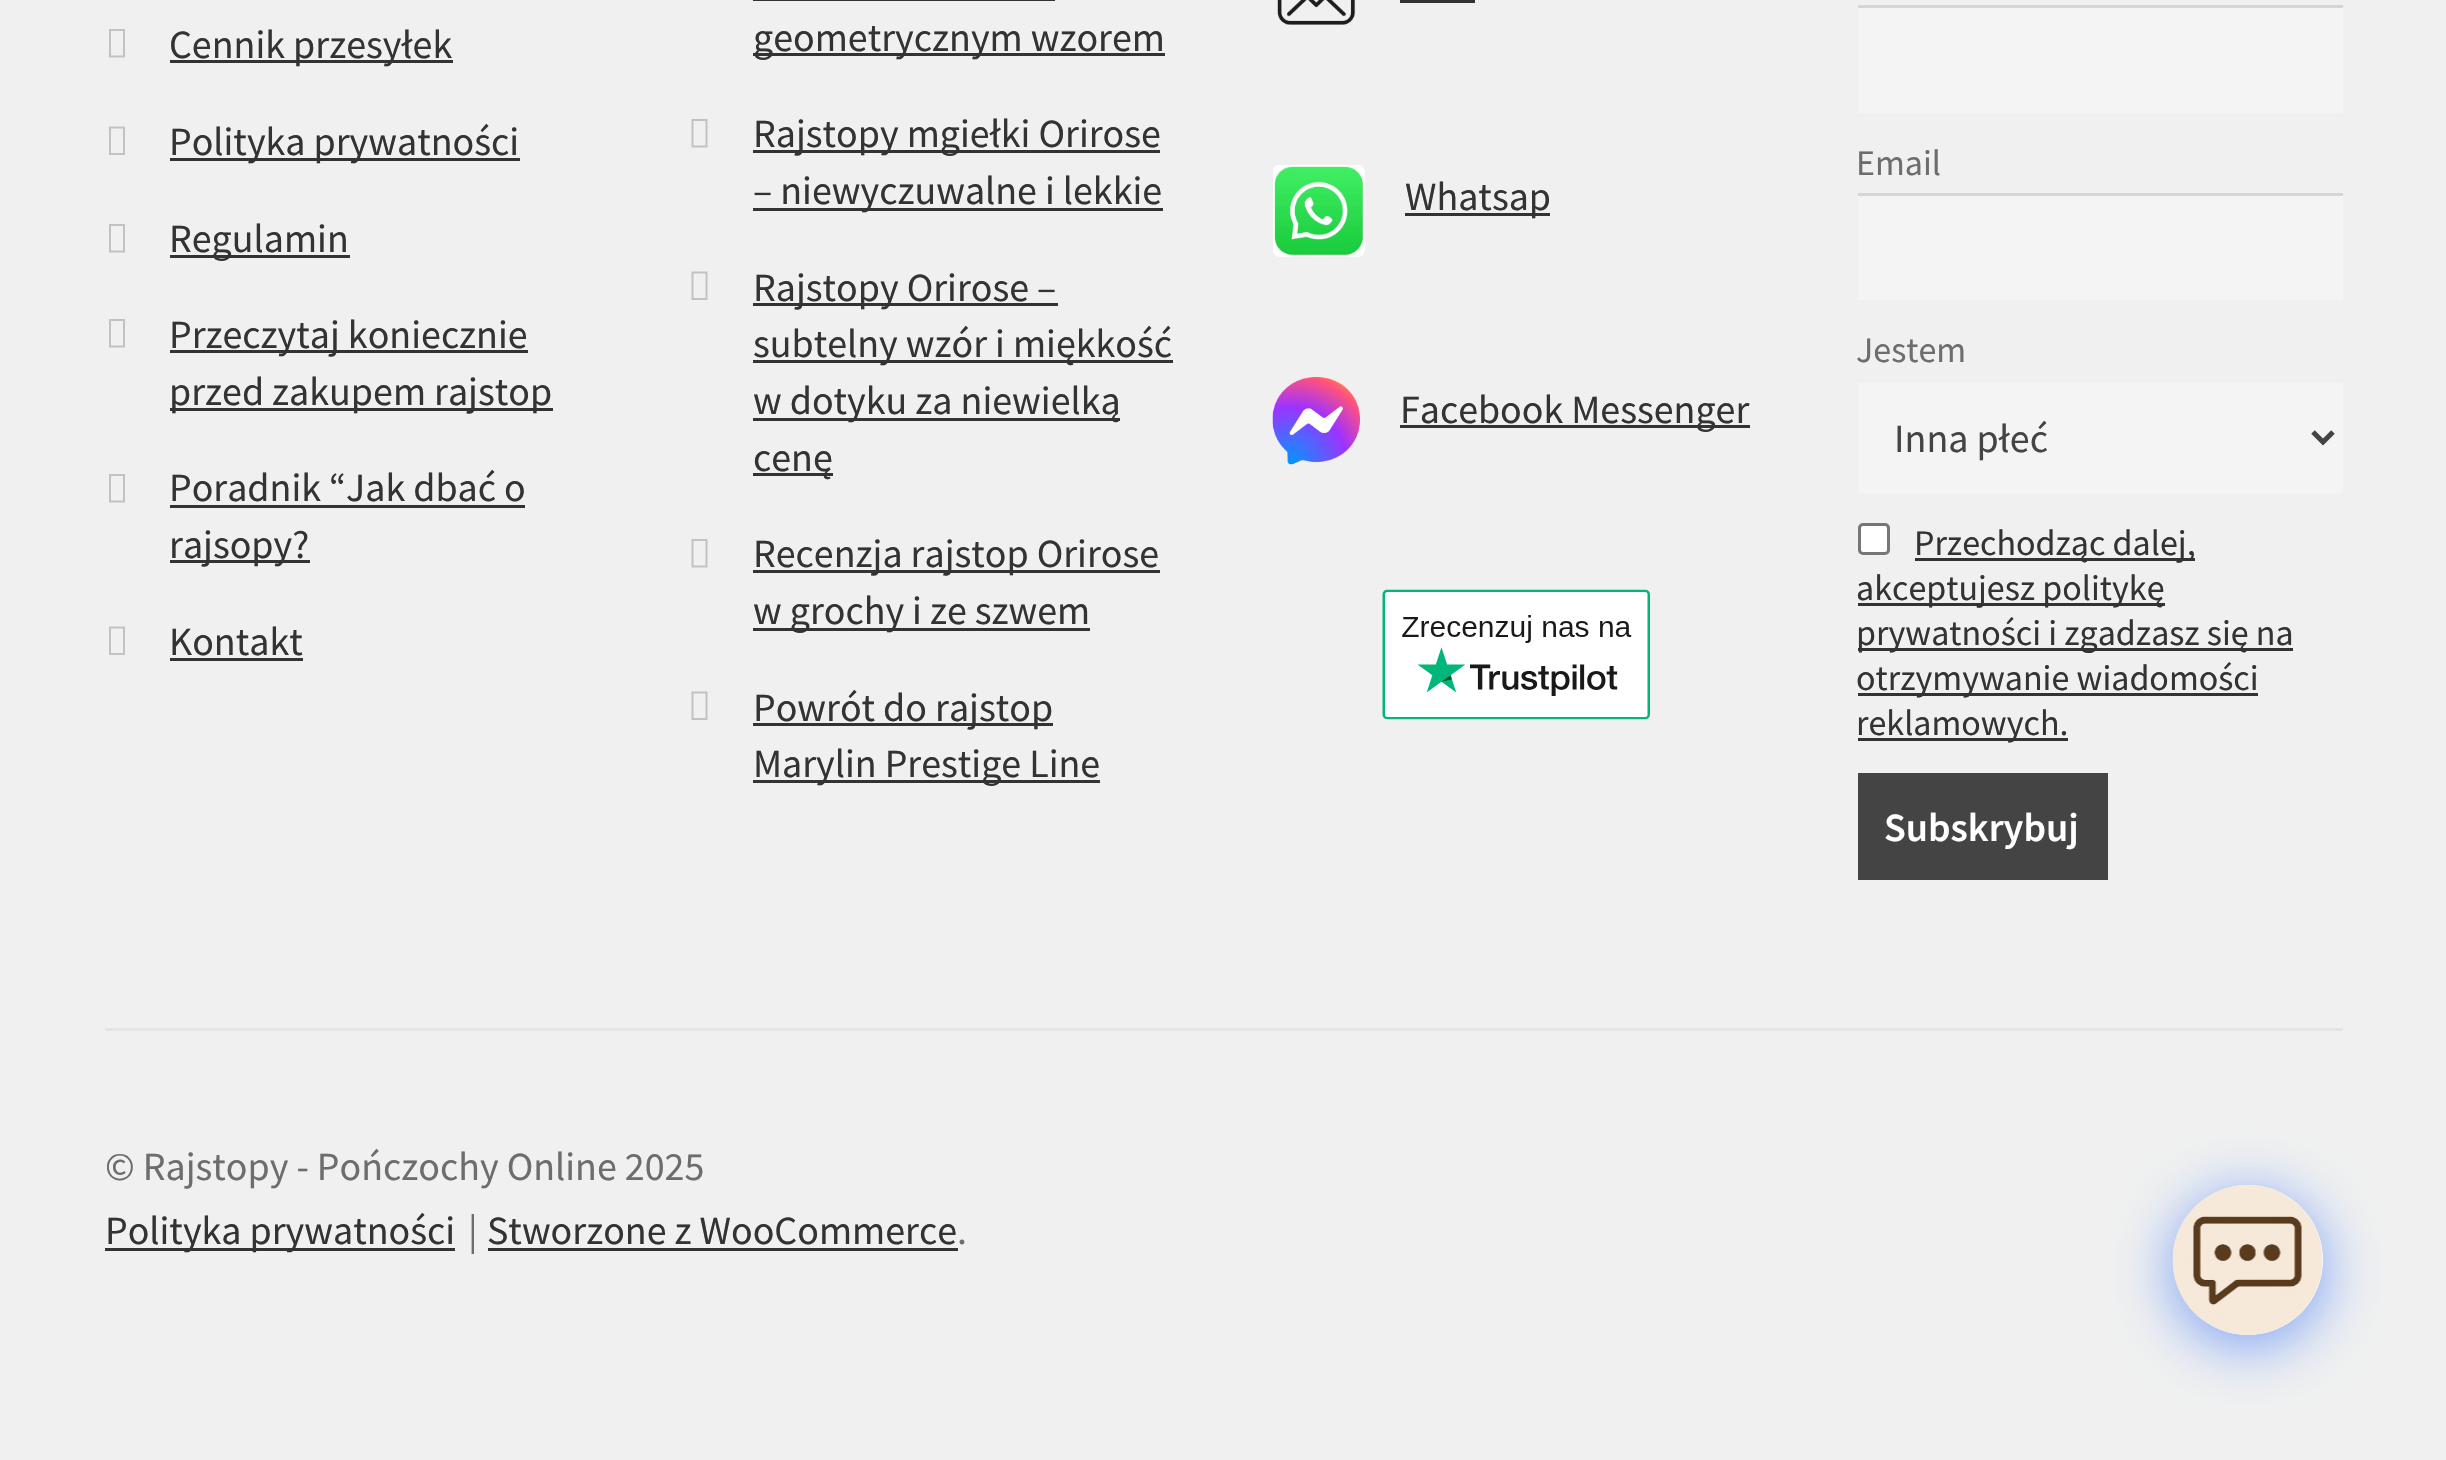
#include "include/core/SkBlurTypes.h"
#include "include/core/SkCanvas.h"
#include "include/core/SkData.h"
#include "include/core/SkFont.h"
#include "include/core/SkFontMgr.h"
#include "include/core/SkImage.h"
#include "include/core/SkMaskFilter.h"
#include "include/core/SkPaint.h"
#include "include/core/SkPathBuilder.h"
#include "include/core/SkTextBlob.h"
#include "include/effects/SkDashPathEffect.h"
#include "include/effects/SkGradientShader.h"
#include "include/utils/SkParsePath.h"

extern sk_sp<SkFontMgr> fontMgr;

void draw(SkCanvas* canvas) {
  SkPaint p;
  p.setAntiAlias(true);
  canvas->clear(SkColorSetRGB(240, 240, 240));
  p.setColor(SkColorSetRGB(228, 228, 228));
  canvas->drawRect(SkRect::MakeLTRB(105, 1028, 2343, 1031), p);
  p.setColor(SkColorSetRGB(194, 194, 194));
  canvas->drawPath(SkPathBuilder().moveTo(109, 57.5f).lineTo(109, 29).lineTo(125, 29).lineTo(125, 57.5f).close().moveTo(111, 55.5f).lineTo(123, 55.5f).lineTo(123, 31).lineTo(111, 31).close().detach(), p);
  p.setColor(SkColorSetRGB(51, 51, 51));
  canvas->drawRect(SkRect::MakeLTRB(170, 60, 453, 63), p);
  p.setColor(SkColorSetRGB(194, 194, 194));
  canvas->drawPath(SkPathBuilder().moveTo(109, 155).lineTo(109, 126.5f).lineTo(125, 126.5f).lineTo(125, 155).close().moveTo(111, 153).lineTo(123, 153).lineTo(123, 128.5f).lineTo(111, 128.5f).close().detach(), p);
  p.setColor(SkColorSetRGB(51, 51, 51));
  canvas->drawRect(SkRect::MakeLTRB(170, 158, 520, 161), p);
  p.setColor(SkColorSetRGB(194, 194, 194));
  canvas->drawPath(SkPathBuilder().moveTo(109, 252.5f).lineTo(109, 224).lineTo(125, 224).lineTo(125, 252.5f).close().moveTo(111, 250.5f).lineTo(123, 250.5f).lineTo(123, 226).lineTo(111, 226).close().detach(), p);
  p.setColor(SkColorSetRGB(51, 51, 51));
  canvas->drawRect(SkRect::MakeLTRB(170, 255, 350, 258), p);
  p.setColor(SkColorSetRGB(194, 194, 194));
  canvas->drawPath(SkPathBuilder().moveTo(109, 347.5f).lineTo(109, 319).lineTo(125, 319).lineTo(125, 347.5f).close().moveTo(111, 345.5f).lineTo(123, 345.5f).lineTo(123, 321).lineTo(111, 321).close().detach(), p);
  p.setColor(SkColorSetRGB(51, 51, 51));
  canvas->drawRect(SkRect::MakeLTRB(170, 350, 528, 353), p);
  canvas->drawRect(SkRect::MakeLTRB(170, 408, 553, 411), p);
  p.setColor(SkColorSetRGB(194, 194, 194));
  canvas->drawPath(SkPathBuilder().moveTo(109, 502.5f).lineTo(109, 474).lineTo(125, 474).lineTo(125, 502.5f).close().moveTo(111, 500.5f).lineTo(123, 500.5f).lineTo(123, 476).lineTo(111, 476).close().detach(), p);
  p.setColor(SkColorSetRGB(51, 51, 51));
  canvas->drawRect(SkRect::MakeLTRB(170, 505, 525, 508), p);
  canvas->drawRect(SkRect::MakeLTRB(170, 560, 310, 563), p);
  p.setColor(SkColorSetRGB(194, 194, 194));
  canvas->drawPath(SkPathBuilder().moveTo(109, 655).lineTo(109, 626.5f).lineTo(125, 626.5f).lineTo(125, 655).close().moveTo(111, 653).lineTo(123, 653).lineTo(123, 628.5f).lineTo(111, 628.5f).close().detach(), p);
  p.setColor(SkColorSetRGB(51, 51, 51));
  canvas->drawRect(SkRect::MakeLTRB(170, 658, 303, 661), p);
  canvas->drawRect(SkRect::MakeLTRB(753, 0, 1055, 1), p);
  canvas->drawRect(SkRect::MakeLTRB(753, 53, 1165, 56), p);
  p.setColor(SkColorSetRGB(194, 194, 194));
  canvas->drawPath(SkPathBuilder().moveTo(691.5f, 147.5f).lineTo(691.5f, 119).lineTo(707.5f, 119).lineTo(707.5f, 147.5f).close().moveTo(693.5f, 145.5f).lineTo(705.5f, 145.5f).lineTo(705.5f, 121).lineTo(693.5f, 121).close().detach(), p);
  p.setColor(SkColorSetRGB(51, 51, 51));
  canvas->drawRect(SkRect::MakeLTRB(753, 150, 1160, 153), p);
  canvas->drawRect(SkRect::MakeLTRB(753, 208, 1163, 211), p);
  p.setColor(SkColorSetRGB(194, 194, 194));
  canvas->drawPath(SkPathBuilder().moveTo(691.5f, 300).lineTo(691.5f, 271.5f).lineTo(707.5f, 271.5f).lineTo(707.5f, 300).close().moveTo(693.5f, 298).lineTo(705.5f, 298).lineTo(705.5f, 273.5f).lineTo(693.5f, 273.5f).close().detach(), p);
  p.setColor(SkColorSetRGB(51, 51, 51));
  canvas->drawRect(SkRect::MakeLTRB(753, 303, 1058, 306), p);
  canvas->drawRect(SkRect::MakeLTRB(753, 360, 1173, 363), p);
  canvas->drawRect(SkRect::MakeLTRB(753, 418, 1120, 421), p);
  canvas->drawRect(SkRect::MakeLTRB(753, 473, 833, 476), p);
  p.setColor(SkColorSetRGB(194, 194, 194));
  canvas->drawPath(SkPathBuilder().moveTo(691.5f, 567.5f).lineTo(691.5f, 539).lineTo(707.5f, 539).lineTo(707.5f, 567.5f).close().moveTo(693.5f, 565.5f).lineTo(705.5f, 565.5f).lineTo(705.5f, 541).lineTo(693.5f, 541).close().detach(), p);
  p.setColor(SkColorSetRGB(51, 51, 51));
  canvas->drawRect(SkRect::MakeLTRB(753, 570, 1160, 573), p);
  canvas->drawRect(SkRect::MakeLTRB(753, 628, 1090, 631), p);
  p.setColor(SkColorSetRGB(194, 194, 194));
  canvas->drawPath(SkPathBuilder().moveTo(691.5f, 720).lineTo(691.5f, 691.5f).lineTo(707.5f, 691.5f).lineTo(707.5f, 720).close().moveTo(693.5f, 718).lineTo(705.5f, 718).lineTo(705.5f, 693.5f).lineTo(693.5f, 693.5f).close().detach(), p);
  p.setColor(SkColorSetRGB(51, 51, 51));
  canvas->drawRect(SkRect::MakeLTRB(753, 723, 1053, 726), p);
  canvas->drawRect(SkRect::MakeLTRB(753, 780, 1100, 783), p);
  canvas->drawImageRect(SkImages::DeferredFromEncodedData(SkData::MakeFromFileName("images/1.png")), SkRect::MakeLTRB(1277, 0, 1356, 25), SkSamplingOptions());
  canvas->drawRect(SkRect::MakeLTRB(1400, 0, 1475, 3), p);
  canvas->drawImageRect(SkImages::DeferredFromEncodedData(SkData::MakeFromFileName("images/2.png")), SkRect::MakeLTRB(1273, 165, 1365, 257), SkSamplingOptions());
  canvas->drawRect(SkRect::MakeLTRB(1405, 213, 1550, 216), p);
  canvas->drawImageRect(SkImages::DeferredFromEncodedData(SkData::MakeFromFileName("images/3.png")), SkRect::MakeLTRB(1272, 377, 1360, 465), SkSamplingOptions());
  canvas->drawRect(SkRect::MakeLTRB(1400, 425, 1750, 428), p);
  canvas->drawImageRect(SkImages::DeferredFromEncodedData(SkData::MakeFromFileName("images/4.png")), SkRect::MakeLTRB(1382, 589, 1650, 720), SkSamplingOptions());
  p.setColor(SkColorSetRGB(244, 244, 244));
  canvas->drawRect(SkRect::MakeLTRB(1858, 8, 2343, 113), p);
  p.setColor(SkColorSetRGB(214, 214, 214));
  canvas->drawRect(SkRect::MakeLTRB(1858, 5, 2343, 8), p);
  p.setColor(SkColorSetRGB(244, 244, 244));
  canvas->drawRect(SkRect::MakeLTRB(1858, 196, 2343, 300), p);
  p.setColor(SkColorSetRGB(214, 214, 214));
  canvas->drawRect(SkRect::MakeLTRB(1858, 193, 2343, 196), p);
  p.setColor(SkColorSetRGB(244, 244, 244));
  canvas->drawRect(SkRect::MakeLTRB(1858, 383, 2343, 493), p);
  p.setStyle(SkPaint::kStroke_Style);
  p.setStrokeWidth(5);
  p.setColor(SkColorSetRGB(68, 68, 68));
  canvas->drawPath(SkPathBuilder().moveTo(2313, 432).lineTo(2323, 442).lineTo(2333, 432).detach(), p);
  p.setStyle(SkPaint::kFill_Style);
  p.setColor(SK_ColorWHITE);
  canvas->drawRoundRect(SkRect::MakeLTRB(1859.5f, 524.5f, 1888.5f, 553.5f), 3.5f, 3.5f, p);
  p.setStyle(SkPaint::kStroke_Style);
  p.setStrokeWidth(3);
  p.setColor(SkColorSetRGB(118, 118, 118));
  canvas->drawRoundRect(SkRect::MakeLTRB(1859.5f, 524.5f, 1888.5f, 553.5f), 3.5f, 3.5f, p);
  p.setStyle(SkPaint::kFill_Style);
  p.setColor(SkColorSetRGB(51, 51, 51));
  canvas->drawRect(SkRect::MakeLTRB(1915, 558, 2195, 561), p);
  canvas->drawRect(SkRect::MakeLTRB(1858, 603, 2165, 606), p);
  canvas->drawRect(SkRect::MakeLTRB(1858, 648, 2293, 651), p);
  canvas->drawRect(SkRect::MakeLTRB(1858, 693, 2258, 696), p);
  canvas->drawRect(SkRect::MakeLTRB(1858, 738, 2068, 741), p);
  p.setColor(SkColorSetRGB(68, 68, 68));
  canvas->drawRect(SkRect::MakeLTRB(1858, 773, 2108, 880), p);
  p.setColor(SkColorSetRGB(51, 51, 51));
  canvas->drawRect(SkRect::MakeLTRB(105, 1248, 455, 1251), p);
  canvas->drawRect(SkRect::MakeLTRB(488, 1248, 958, 1251), p);
  p.setColor(SkColorSetARGB(128, 0, 77, 255));
  p.setMaskFilter(SkMaskFilter::MakeBlur(kNormal_SkBlurStyle, 30));
  canvas->drawRoundRect(SkRect::MakeLTRB(2173, 1195, 2323, 1345), 75, 75, p);
  p.setMaskFilter(nullptr);
  p.setColor(SK_ColorWHITE);
  canvas->drawCircle(2248, 1260, 75, p);
  canvas->drawImageRect(SkImages::DeferredFromEncodedData(SkData::MakeFromFileName("images/5.png")), SkRect::MakeLTRB(2172, 1185, 2323, 1335), SkSamplingOptions());
  SkFont font1(fontMgr->matchFamilyStyle("Source Sans Pro", SkFontStyle::Normal()), 40);
  font1.setSubpixel(true);
  p.setColor(SkColorSetRGB(51, 51, 51));
  canvas->drawString("Cennik przesyłek", 169, 58, font1, p);
  canvas->drawString("Polityka prywatności", 169, 155, font1, p);
  canvas->drawString("Regulamin", 169, 252, font1, p);
  canvas->drawString("Przeczytaj koniecznie", 169, 348, font1, p);
  canvas->drawString("przed zakupem rajstop", 169, 405, font1, p);
  canvas->drawString("Poradnik “Jak dbać o", 169, 501, font1, p);
  canvas->drawString("rajsopy?", 169, 558, font1, p);
  canvas->drawString("Kontakt", 169, 655, font1, p);
  canvas->drawString("geometrycznym wzorem", 753, 51, font1, p);
  canvas->drawString("Rajstopy mgiełki Orirose", 753, 147, font1, p);
  canvas->drawString("– niewyczuwalne i lekkie", 753, 204, font1, p);
  canvas->drawString("Rajstopy Orirose –", 753, 301, font1, p);
  canvas->drawString("subtelny wzór i miękkość", 753, 357, font1, p);
  canvas->drawString("w dotyku za niewielką", 753, 414, font1, p);
  canvas->drawString("cenę", 753, 471, font1, p);
  canvas->drawString("Recenzja rajstop Orirose", 753, 567, font1, p);
  canvas->drawString("w grochy i ze szwem", 753, 624, font1, p);
  canvas->drawString("Powrót do rajstop", 753, 721, font1, p);
  canvas->drawString("Marylin Prestige Line", 753, 777, font1, p);
  canvas->drawString("Whatsap", 1405, 210, font1, p);
  canvas->drawString("Facebook Messenger", 1400, 423, font1, p);
  SkFont font2(fontMgr->matchFamilyStyle("Source Sans Pro", SkFontStyle::Normal()), 36);
  font2.setSubpixel(true);
  p.setColor(SkColorSetRGB(109, 109, 109));
  canvas->drawString("Email", 1856, 175, font2, p);
  canvas->drawString("Jestem", 1856, 362, font2, p);
  p.setColor(SkColorSetRGB(68, 68, 68));
  canvas->drawString("Inna płeć", 1894, 452, font1, p);
  p.setColor(SkColorSetRGB(51, 51, 51));
  canvas->drawString("Przechodząc dalej,", 1914, 555, font2, p);
  canvas->drawString("akceptujesz politykę", 1856, 600, font2, p);
  canvas->drawString("prywatności i zgadzasz się na", 1856, 645, font2, p);
  canvas->drawString("otrzymywanie wiadomości", 1856, 690, font2, p);
  canvas->drawString("reklamowych.", 1856, 735, font2, p);
  SkFont font3(fontMgr->matchFamilyStyle("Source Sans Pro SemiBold", SkFontStyle(600, SkFontStyle::kNormal_Width, SkFontStyle::kUpright_Slant)), 40);
  font3.setSubpixel(true);
  p.setColor(SK_ColorWHITE);
  canvas->drawString("Subskrybuj", 1884, 841, font3, p);
  p.setColor(SkColorSetRGB(109, 109, 109));
  canvas->drawString("© Rajstopy - Pończochy Online 2025", 105, 1180, font1, p);
  p.setColor(SkColorSetRGB(51, 51, 51));
  canvas->drawString("Polityka prywatności", 105, 1244, font1, p);
  p.setColor(SkColorSetRGB(109, 109, 109));
  canvas->drawString("|", 468, 1244, font1, p);
  p.setColor(SkColorSetRGB(51, 51, 51));
  canvas->drawString("Stworzone z WooCommerce", 487, 1244, font1, p);
  p.setColor(SkColorSetRGB(109, 109, 109));
  canvas->drawString(".", 957, 1244, font1, p);
}
